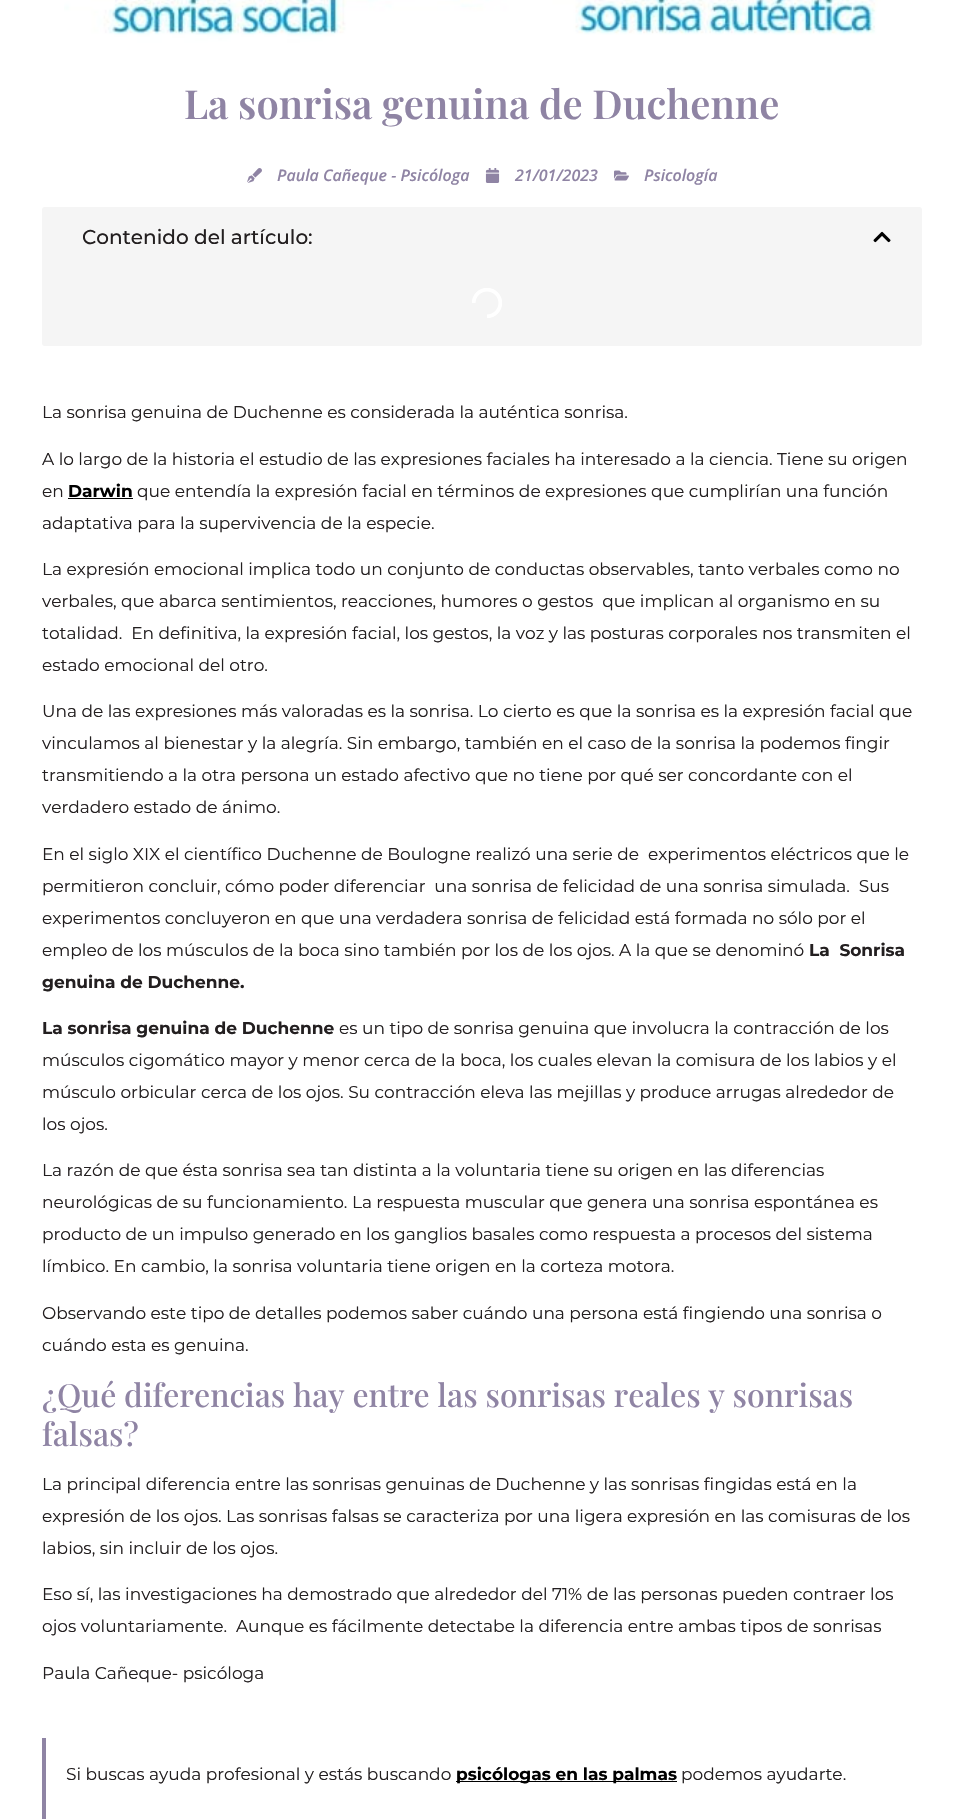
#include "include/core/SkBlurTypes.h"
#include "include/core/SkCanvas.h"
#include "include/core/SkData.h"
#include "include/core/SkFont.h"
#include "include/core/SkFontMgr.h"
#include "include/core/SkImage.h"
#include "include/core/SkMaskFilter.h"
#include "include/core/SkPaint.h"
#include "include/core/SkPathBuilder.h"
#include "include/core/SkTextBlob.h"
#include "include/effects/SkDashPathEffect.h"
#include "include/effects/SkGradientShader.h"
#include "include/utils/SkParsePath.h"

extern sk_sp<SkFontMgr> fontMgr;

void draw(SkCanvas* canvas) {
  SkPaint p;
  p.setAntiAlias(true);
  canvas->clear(SK_ColorWHITE);
  canvas->drawImageRect(SkImages::DeferredFromEncodedData(SkData::MakeFromFileName("images/1.png")), SkRect::MakeLTRB(64, 0, 887, 43), SkSamplingOptions());
  canvas->drawImageRect(SkImages::DeferredFromEncodedData(SkData::MakeFromFileName("images/2.png")), SkRect::MakeLTRB(247, 168, 262, 183), SkSamplingOptions());
  canvas->drawImageRect(SkImages::DeferredFromEncodedData(SkData::MakeFromFileName("images/3.png")), SkRect::MakeLTRB(485, 168, 500, 183), SkSamplingOptions());
  canvas->drawImageRect(SkImages::DeferredFromEncodedData(SkData::MakeFromFileName("images/4.png")), SkRect::MakeLTRB(614, 170, 629, 181), SkSamplingOptions());
  p.setColor(SkColorSetRGB(245, 245, 245));
  canvas->drawRoundRect(SkRect::MakeLTRB(42, 207, 922, 346), 3, 3, p);
  canvas->drawImageRect(SkImages::DeferredFromEncodedData(SkData::MakeFromFileName("images/5.png")), SkRect::MakeLTRB(873, 231, 891, 243), SkSamplingOptions());
  canvas->drawImageRect(SkImages::DeferredFromEncodedData(SkData::MakeFromFileName("images/6.png")), SkRect::MakeLTRB(472, 288, 502, 318), SkSamplingOptions());
  p.setColor(SK_ColorBLACK);
  canvas->drawRect(SkRect::MakeLTRB(68, 498, 133, 499), p);
  p.setColor(SkColorSetRGB(143, 132, 164));
  canvas->drawRect(SkRect::MakeLTRB(42, 1738, 46, 1819), p);
  p.setColor(SK_ColorBLACK);
  canvas->drawRect(SkRect::MakeLTRB(456, 1781, 677, 1782), p);
  SkFont font1(fontMgr->matchFamilyStyle("Playfair Display", SkFontStyle(600, SkFontStyle::kNormal_Width, SkFontStyle::kUpright_Slant)), 40);
  font1.setSubpixel(true);
  p.setColor(SkColorSetRGB(143, 132, 164));
  canvas->drawString("La sonrisa genuina de Duchenne", 184, 119, font1, p);
  SkFont font2(fontMgr->matchFamilyStyle("Open Sans", SkFontStyle(600, SkFontStyle::kNormal_Width, SkFontStyle::kItalic_Slant)), 16);
  font2.setSubpixel(true);
  canvas->drawString("Paula Cañeque - Psicóloga", 277, 181, font2, p);
  canvas->drawString("21/01/2023", 515, 181, font2, p);
  canvas->drawString("Psicología", 644, 181, font2, p);
  SkFont font3(fontMgr->matchFamilyStyle("Montserrat", SkFontStyle(500, SkFontStyle::kNormal_Width, SkFontStyle::kUpright_Slant)), 20);
  font3.setSubpixel(true);
  p.setColor(SkColorSetRGB(35, 31, 32));
  canvas->drawString("Contenido del artículo:", 82, 244, font3, p);
  SkFont font4(fontMgr->matchFamilyStyle("Montserrat", SkFontStyle::Normal()), 17);
  font4.setSubpixel(true);
  canvas->drawString("La sonrisa genuina de Duchenne es considerada la auténtica sonrisa.", 42, 418, font4, p);
  canvas->drawString("A lo largo de la historia el estudio de las expresiones faciales ha interesado a la ciencia. Tiene su origen", 42, 465, font4, p);
  canvas->drawString("en", 42, 497, font4, p);
  SkFont font5(fontMgr->matchFamilyStyle("Montserrat", SkFontStyle::Bold()), 17);
  font5.setSubpixel(true);
  p.setColor(SK_ColorBLACK);
  canvas->drawString("Darwin", 68, 497, font5, p);
  p.setColor(SkColorSetRGB(35, 31, 32));
  canvas->drawString("que entendía la expresión facial en términos de expresiones que cumplirían una función", 137, 497, font4, p);
  canvas->drawString("adaptativa para la supervivencia de la especie.", 42, 529, font4, p);
  canvas->drawString("La expresión emocional implica todo un conjunto de conductas observables, tanto verbales como no", 42, 575, font4, p);
  canvas->drawString("verbales, que abarca sentimientos, reacciones, humores o gestos  que implican al organismo en su", 42, 607, font4, p);
  canvas->drawString("totalidad.  En definitiva, la expresión facial, los gestos, la voz y las posturas corporales nos transmiten el", 42, 639, font4, p);
  canvas->drawString("estado emocional del otro.", 42, 671, font4, p);
  canvas->drawString("Una de las expresiones más valoradas es la sonrisa. Lo cierto es que la sonrisa es la expresión facial que", 42, 717, font4, p);
  canvas->drawString("vinculamos al bienestar y la alegría. Sin embargo, también en el caso de la sonrisa la podemos fingir", 42, 749, font4, p);
  canvas->drawString("transmitiendo a la otra persona un estado afectivo que no tiene por qué ser concordante con el", 42, 781, font4, p);
  canvas->drawString("verdadero estado de ánimo.", 42, 813, font4, p);
  canvas->drawString("En el siglo XIX el científico Duchenne de Boulogne realizó una serie de  experimentos eléctricos que le", 42, 860, font4, p);
  canvas->drawString("permitieron concluir, cómo poder diferenciar  una sonrisa de felicidad de una sonrisa simulada.  Sus", 42, 892, font4, p);
  canvas->drawString("experimentos concluyeron en que una verdadera sonrisa de felicidad está formada no sólo por el", 42, 924, font4, p);
  canvas->drawString("empleo de los músculos de la boca sino también por los de los ojos. A la que se denominó", 42, 956, font4, p);
  canvas->drawString("La  Sonrisa", 809, 956, font5, p);
  canvas->drawString("genuina de Duchenne.", 42, 988, font5, p);
  canvas->drawString("La sonrisa genuina de Duchenne", 42, 1034, font5, p);
  canvas->drawString("es un tipo de sonrisa genuina que involucra la contracción de los", 339, 1034, font4, p);
  canvas->drawString("músculos cigomático mayor y menor cerca de la boca, los cuales elevan la comisura de los labios y el", 42, 1066, font4, p);
  canvas->drawString("músculo orbicular cerca de los ojos. Su contracción eleva las mejillas y produce arrugas alrededor de", 42, 1098, font4, p);
  canvas->drawString("los ojos.", 42, 1130, font4, p);
  canvas->drawString("La razón de que ésta sonrisa sea tan distinta a la voluntaria tiene su origen en las diferencias", 42, 1176, font4, p);
  canvas->drawString("neurológicas de su funcionamiento. La respuesta muscular que genera una sonrisa espontánea es", 42, 1208, font4, p);
  canvas->drawString("producto de un impulso generado en los ganglios basales como respuesta a procesos del sistema", 42, 1240, font4, p);
  canvas->drawString("límbico. En cambio, la sonrisa voluntaria tiene origen en la corteza motora.", 42, 1272, font4, p);
  canvas->drawString("Observando este tipo de detalles podemos saber cuándo una persona está fingiendo una sonrisa o", 42, 1319, font4, p);
  canvas->drawString("cuándo esta es genuina.", 42, 1351, font4, p);
  SkFont font6(fontMgr->matchFamilyStyle("Playfair Display", SkFontStyle(500, SkFontStyle::kNormal_Width, SkFontStyle::kUpright_Slant)), 32);
  font6.setSubpixel(true);
  p.setColor(SkColorSetRGB(143, 132, 164));
  canvas->drawString("¿Qué diferencias hay entre las sonrisas reales y sonrisas", 42, 1407, font6, p);
  canvas->drawString("falsas?", 42, 1446, font6, p);
  p.setColor(SkColorSetRGB(35, 31, 32));
  canvas->drawString("La principal diferencia entre las sonrisas genuinas de Duchenne y las sonrisas fingidas está en la", 42, 1490, font4, p);
  canvas->drawString("expresión de los ojos. Las sonrisas falsas se caracteriza por una ligera expresión en las comisuras de los", 42, 1522, font4, p);
  canvas->drawString("labios, sin incluir de los ojos.", 42, 1554, font4, p);
  canvas->drawString("Eso sí, las investigaciones ha demostrado que alrededor del 71 % de las personas pueden contraer los", 42, 1600, font4, p);
  canvas->drawString("ojos voluntariamente.  Aunque es fácilmente detectabe la diferencia entre ambas tipos de sonrisas", 42, 1632, font4, p);
  canvas->drawString("Paula Cañeque- psicóloga", 42, 1679, font4, p);
  canvas->drawString("Si buscas ayuda profesional y estás buscando", 66, 1780, font4, p);
  p.setColor(SK_ColorBLACK);
  canvas->drawString("psicólogas en las palmas", 456, 1780, font5, p);
  p.setColor(SkColorSetRGB(35, 31, 32));
  canvas->drawString("podemos ayudarte.", 681, 1780, font4, p);
}
